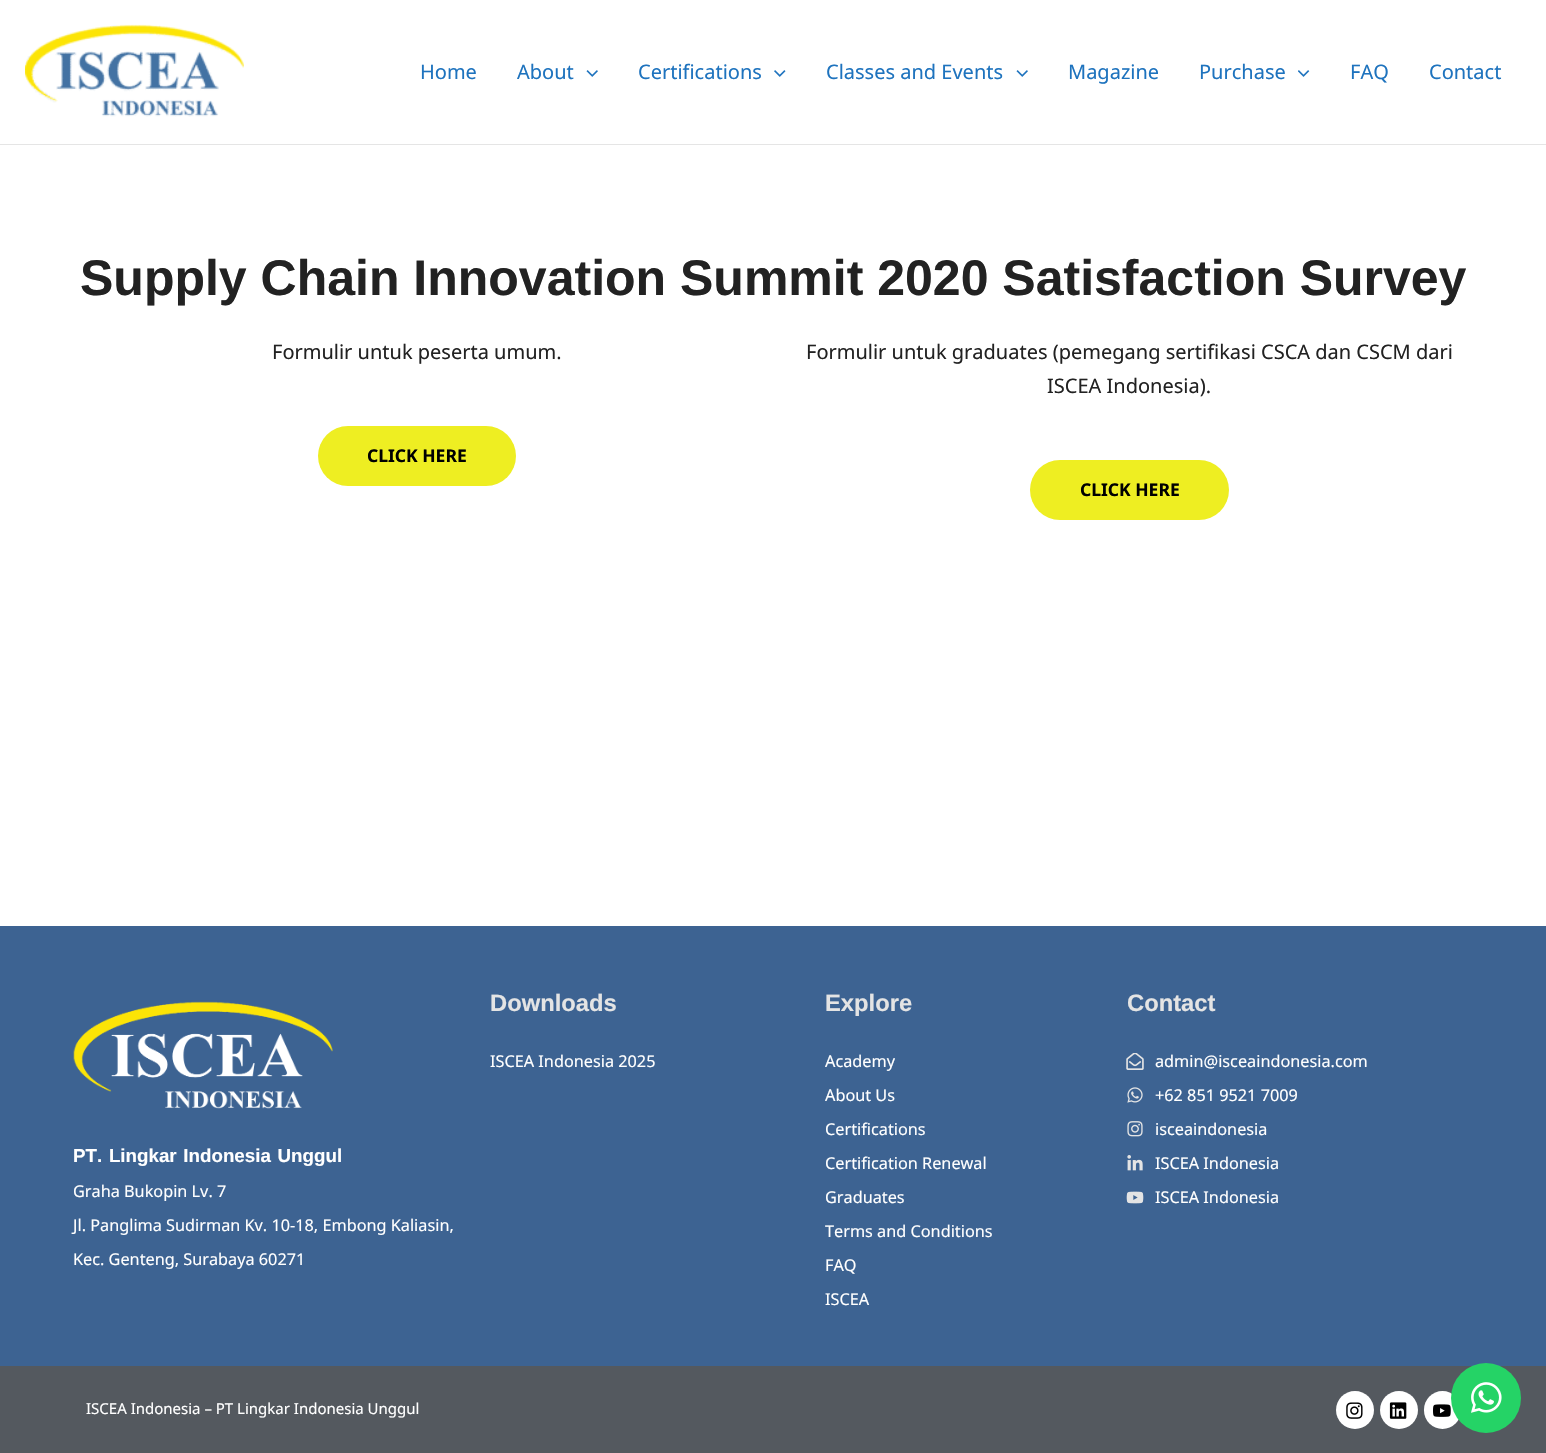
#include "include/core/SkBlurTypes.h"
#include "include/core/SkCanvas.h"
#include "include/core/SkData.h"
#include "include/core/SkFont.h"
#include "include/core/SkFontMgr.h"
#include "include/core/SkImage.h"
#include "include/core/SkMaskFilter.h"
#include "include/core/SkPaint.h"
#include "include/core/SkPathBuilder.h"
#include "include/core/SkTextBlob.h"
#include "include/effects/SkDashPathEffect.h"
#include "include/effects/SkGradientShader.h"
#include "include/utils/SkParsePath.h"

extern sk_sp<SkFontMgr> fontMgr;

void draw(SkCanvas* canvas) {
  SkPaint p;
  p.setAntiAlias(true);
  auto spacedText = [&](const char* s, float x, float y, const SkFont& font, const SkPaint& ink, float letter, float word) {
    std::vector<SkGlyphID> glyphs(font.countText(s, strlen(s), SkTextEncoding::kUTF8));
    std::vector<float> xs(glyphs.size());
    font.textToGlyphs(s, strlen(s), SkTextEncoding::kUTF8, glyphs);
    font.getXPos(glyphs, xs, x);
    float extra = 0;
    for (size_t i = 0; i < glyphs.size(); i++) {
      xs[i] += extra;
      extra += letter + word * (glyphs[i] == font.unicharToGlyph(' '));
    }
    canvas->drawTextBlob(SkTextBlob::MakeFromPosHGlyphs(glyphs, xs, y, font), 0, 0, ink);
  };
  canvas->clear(SK_ColorWHITE);
  p.setColor(SkColorSetRGB(229, 229, 229));
  canvas->drawRect(SkRect::MakeLTRB(0, 144, 1546, 145), p);
  canvas->drawImageRect(SkImages::DeferredFromEncodedData(SkData::MakeFromFileName("images/1.png")), SkRect::MakeLTRB(25, 24, 244, 117), SkSamplingOptions());
  canvas->drawImageRect(SkImages::DeferredFromEncodedData(SkData::MakeFromFileName("images/2.png")), SkRect::MakeLTRB(586, 70, 598, 77), SkSamplingOptions());
  canvas->drawImageRect(SkImages::DeferredFromEncodedData(SkData::MakeFromFileName("images/3.png")), SkRect::MakeLTRB(774, 70, 786, 77), SkSamplingOptions());
  canvas->drawImageRect(SkImages::DeferredFromEncodedData(SkData::MakeFromFileName("images/2.png")), SkRect::MakeLTRB(1016, 70, 1028, 77), SkSamplingOptions());
  canvas->drawImageRect(SkImages::DeferredFromEncodedData(SkData::MakeFromFileName("images/4.png")), SkRect::MakeLTRB(1298, 70, 1310, 77), SkSamplingOptions());
  p.setColor(SkColorSetRGB(238, 238, 34));
  canvas->drawRoundRect(SkRect::MakeLTRB(318, 426, 516, 486), 30, 30, p);
  canvas->drawRoundRect(SkRect::MakeLTRB(1030, 460, 1229, 520), 30, 30, p);
  p.setColor(SkColorSetRGB(61, 99, 146));
  canvas->drawRect(SkRect::MakeLTRB(0, 926, 1546, 1366), p);
  canvas->drawImageRect(SkImages::DeferredFromEncodedData(SkData::MakeFromFileName("images/5.png")), SkRect::MakeLTRB(73, 1001, 333, 1109), SkSamplingOptions());
  canvas->drawImageRect(SkImages::DeferredFromEncodedData(SkData::MakeFromFileName("images/6.png")), SkRect::MakeLTRB(1126, 1053, 1144, 1070), SkSamplingOptions());
  canvas->drawImageRect(SkImages::DeferredFromEncodedData(SkData::MakeFromFileName("images/7.png")), SkRect::MakeLTRB(1127, 1087, 1143, 1103), SkSamplingOptions());
  canvas->drawImageRect(SkImages::DeferredFromEncodedData(SkData::MakeFromFileName("images/8.png")), SkRect::MakeLTRB(1127, 1121, 1143, 1137), SkSamplingOptions());
  canvas->drawImageRect(SkImages::DeferredFromEncodedData(SkData::MakeFromFileName("images/9.png")), SkRect::MakeLTRB(1127, 1155, 1143, 1171), SkSamplingOptions());
  canvas->drawImageRect(SkImages::DeferredFromEncodedData(SkData::MakeFromFileName("images/10.png")), SkRect::MakeLTRB(1126, 1191, 1144, 1204), SkSamplingOptions());
  p.setColor(SkColorSetRGB(84, 89, 95));
  canvas->drawRect(SkRect::MakeLTRB(0, 1366, 1546, 1453), p);
  p.setColor(SK_ColorWHITE);
  canvas->drawCircle(1355, 1410, 19, p);
  canvas->drawImageRect(SkImages::DeferredFromEncodedData(SkData::MakeFromFileName("images/11.png")), SkRect::MakeLTRB(1346, 1402, 1363, 1419), SkSamplingOptions());
  canvas->drawCircle(1399, 1410, 19, p);
  canvas->drawImageRect(SkImages::DeferredFromEncodedData(SkData::MakeFromFileName("images/12.png")), SkRect::MakeLTRB(1389, 1402, 1407, 1419), SkSamplingOptions());
  canvas->drawRoundRect(SkRect::MakeLTRB(1424, 1391, 1461, 1429), 18.5f, 18.5f, p);
  canvas->drawImageRect(SkImages::DeferredFromEncodedData(SkData::MakeFromFileName("images/13.png")), SkRect::MakeLTRB(1433, 1404, 1451, 1417), SkSamplingOptions());
  p.setColor(SkColorSetRGB(37, 211, 102));
  canvas->drawCircle(1486, 1398, 35, p);
  canvas->drawImageRect(SkImages::DeferredFromEncodedData(SkData::MakeFromFileName("images/14.png")), SkRect::MakeLTRB(1471, 1382, 1502, 1413), SkSamplingOptions());
  SkFont font1(fontMgr->matchFamilyStyle("Noto Sans", SkFontStyle::Normal()), 20);
  font1.setSubpixel(true);
  p.setColor(SkColorSetRGB(30, 115, 190));
  canvas->drawString("Home", 420, 79, font1, p);
  canvas->drawString("About", 517, 79, font1, p);
  canvas->drawString("Certifications", 638, 79, font1, p);
  canvas->drawString("Classes and Events", 826, 79, font1, p);
  canvas->drawString("Magazine", 1068, 79, font1, p);
  canvas->drawString("Purchase", 1199, 79, font1, p);
  canvas->drawString("FAQ", 1350, 79, font1, p);
  canvas->drawString("Contact", 1429, 79, font1, p);
  SkFont font2(fontMgr->matchFamilyStyle("Liberation Sans", SkFontStyle::Bold()), 50);
  font2.setSubpixel(true);
  p.setColor(SkColorSetRGB(34, 34, 34));
  canvas->drawString("Supply Chain Innovation Summit 2020 Satisfaction Survey", 80, 295, font2, p);
  canvas->drawString("Formulir untuk peserta umum.", 272, 359, font1, p);
  SkFont font3(fontMgr->matchFamilyStyle("Noto Sans", SkFontStyle::Bold()), 17.5f);
  font3.setSubpixel(true);
  p.setColor(SK_ColorBLACK);
  canvas->drawString("CLICK HERE", 367, 462, font3, p);
  p.setColor(SkColorSetRGB(34, 34, 34));
  canvas->drawString("Formulir untuk graduates (pemegang sertifikasi CSCA dan CSCM dari", 806, 359, font1, p);
  canvas->drawString("ISCEA Indonesia).", 1047, 393, font1, p);
  p.setColor(SK_ColorBLACK);
  canvas->drawString("CLICK HERE", 1080, 496, font3, p);
  SkFont font4(fontMgr->matchFamilyStyle("Liberation Sans", SkFontStyle::Bold()), 18.75f);
  font4.setSubpixel(true);
  p.setColor(SK_ColorWHITE);
  spacedText("PT. Lingkar Indonesia Unggul", 73, 1162, font4, p, 0, 1.5f);
  SkFont font5(fontMgr->matchFamilyStyle("Noto Sans", SkFontStyle::Normal()), 16.25f);
  font5.setSubpixel(true);
  canvas->drawString("Graha Bukopin Lv. 7", 73, 1197, font5, p);
  canvas->drawString("Jl. Panglima Sudirman Kv. 10-18, Embong Kaliasin,", 73, 1231, font5, p);
  canvas->drawString("Kec. Genteng, Surabaya 60271", 73, 1265, font5, p);
  SkFont font6(fontMgr->matchFamilyStyle("Liberation Sans", SkFontStyle::Bold()), 23.75f);
  font6.setSubpixel(true);
  p.setColor(SkColorSetRGB(228, 228, 228));
  canvas->drawString("Downloads", 490, 1011, font6, p);
  p.setColor(SK_ColorWHITE);
  canvas->drawString("ISCEA Indonesia 2025", 490, 1067, font5, p);
  p.setColor(SkColorSetRGB(228, 228, 228));
  canvas->drawString("Explore", 825, 1011, font6, p);
  p.setColor(SK_ColorWHITE);
  canvas->drawString("Academy", 825, 1067, font5, p);
  canvas->drawString("About Us", 825, 1101, font5, p);
  canvas->drawString("Certifications", 825, 1135, font5, p);
  canvas->drawString("Certification Renewal", 825, 1169, font5, p);
  canvas->drawString("Graduates", 825, 1203, font5, p);
  canvas->drawString("Terms and Conditions", 825, 1237, font5, p);
  canvas->drawString("FAQ", 825, 1271, font5, p);
  canvas->drawString("ISCEA", 825, 1305, font5, p);
  p.setColor(SkColorSetRGB(228, 228, 228));
  canvas->drawString("Contact", 1127, 1011, font6, p);
  p.setColor(SK_ColorWHITE);
  canvas->drawString("admin@isceaindonesia.com", 1155, 1067, font5, p);
  canvas->drawString("+62 851 9521 7009", 1155, 1101, font5, p);
  canvas->drawString("isceaindonesia", 1155, 1135, font5, p);
  canvas->drawString("ISCEA Indonesia", 1155, 1169, font5, p);
  canvas->drawString("ISCEA Indonesia", 1155, 1203, font5, p);
  SkFont font7(fontMgr->matchFamilyStyle("Noto Sans", SkFontStyle::Normal()), 15);
  font7.setSubpixel(true);
  canvas->drawString("ISCEA Indonesia – PT Lingkar Indonesia Unggul", 86, 1414, font7, p);
}
